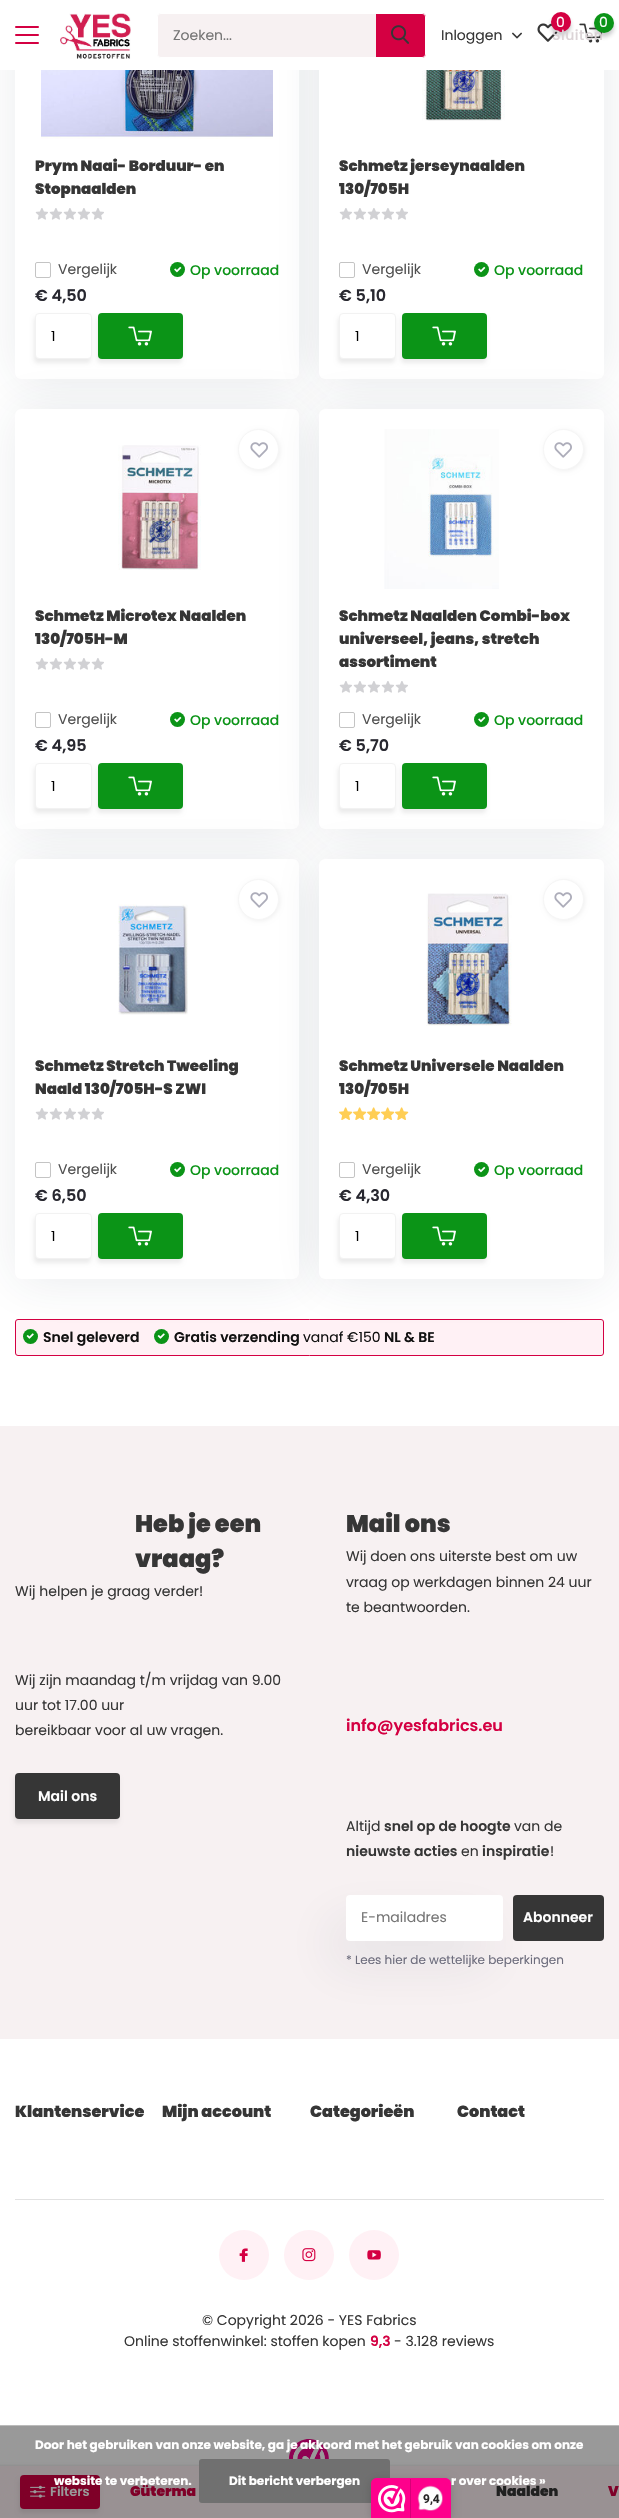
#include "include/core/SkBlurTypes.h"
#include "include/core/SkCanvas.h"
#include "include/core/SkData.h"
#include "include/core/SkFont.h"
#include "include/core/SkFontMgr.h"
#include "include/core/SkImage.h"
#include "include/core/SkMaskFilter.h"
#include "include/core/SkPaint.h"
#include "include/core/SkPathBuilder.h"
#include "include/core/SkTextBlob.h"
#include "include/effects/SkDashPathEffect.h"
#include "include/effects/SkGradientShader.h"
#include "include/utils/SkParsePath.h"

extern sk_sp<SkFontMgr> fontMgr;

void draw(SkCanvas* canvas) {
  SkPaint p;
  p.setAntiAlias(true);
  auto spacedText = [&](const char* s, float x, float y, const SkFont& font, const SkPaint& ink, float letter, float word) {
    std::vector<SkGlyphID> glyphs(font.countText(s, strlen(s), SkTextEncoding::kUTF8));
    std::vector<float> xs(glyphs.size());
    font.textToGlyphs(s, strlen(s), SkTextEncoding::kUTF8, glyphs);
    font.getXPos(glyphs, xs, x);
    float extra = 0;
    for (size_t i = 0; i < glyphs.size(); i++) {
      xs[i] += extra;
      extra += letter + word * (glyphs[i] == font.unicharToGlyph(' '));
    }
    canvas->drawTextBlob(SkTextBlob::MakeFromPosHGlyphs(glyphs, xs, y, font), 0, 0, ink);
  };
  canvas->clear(SK_ColorWHITE);
  p.setColor(SkColorSetARGB(26, 38, 63, 77));
  p.setMaskFilter(SkMaskFilter::MakeBlur(kNormal_SkBlurStyle, 25));
  canvas->drawRoundRect(SkRect::MakeLTRB(17, -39, 301, 381), 6, 6, p);
  p.setMaskFilter(nullptr);
  p.setColor(SK_ColorWHITE);
  canvas->drawRoundRect(SkRect::MakeLTRB(15, -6, 299, 379), 6, 6, p);
  canvas->drawImageRect(SkImages::DeferredFromEncodedData(SkData::MakeFromFileName("images/6.png")), SkRect::MakeLTRB(41, 70, 273, 139), SkSamplingOptions());
  p.setColor(SkColorSetARGB(26, 38, 63, 77));
  p.setMaskFilter(SkMaskFilter::MakeBlur(kNormal_SkBlurStyle, 25));
  canvas->drawRoundRect(SkRect::MakeLTRB(321, -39, 606, 381), 6, 6, p);
  p.setMaskFilter(nullptr);
  p.setColor(SK_ColorWHITE);
  canvas->drawRoundRect(SkRect::MakeLTRB(319, -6, 604, 379), 6, 6, p);
  canvas->drawRect(SkRect::MakeLTRB(0, 0, 619, 70), p);
  p.setColor(SkColorSetRGB(212, 0, 66));
  canvas->drawRoundRect(SkRect::MakeLTRB(15, 26, 39, 28), 1, 1, p);
  canvas->drawRoundRect(SkRect::MakeLTRB(15, 34, 39, 36), 1, 1, p);
  canvas->drawRoundRect(SkRect::MakeLTRB(15, 42, 39, 44), 1, 1, p);
  canvas->drawImageRect(SkImages::DeferredFromEncodedData(SkData::MakeFromFileName("images/1.png")), SkRect::MakeLTRB(60, 13, 131, 59), SkSamplingOptions());
  canvas->drawImageRect(SkImages::DeferredFromEncodedData(SkData::MakeFromFileName("images/2.png")), SkRect::MakeLTRB(537, 23, 558, 42), SkSamplingOptions());
  p.setColor(SkColorSetARGB(64, 40, 40, 48));
  p.setMaskFilter(SkMaskFilter::MakeBlur(kNormal_SkBlurStyle, 2));
  canvas->drawRoundRect(SkRect::MakeLTRB(551, 16, 571, 36), 10, 10, p);
  p.setMaskFilter(nullptr);
  p.setColor(SkColorSetRGB(212, 0, 66));
  canvas->drawCircle(561, 22, 10, p);
  canvas->drawImageRect(SkImages::DeferredFromEncodedData(SkData::MakeFromFileName("images/3.png")), SkRect::MakeLTRB(579, 23, 603, 43), SkSamplingOptions());
  p.setColor(SkColorSetARGB(64, 40, 40, 48));
  p.setMaskFilter(SkMaskFilter::MakeBlur(kNormal_SkBlurStyle, 2));
  canvas->drawRoundRect(SkRect::MakeLTRB(594, 17, 614, 37), 10, 10, p);
  p.setMaskFilter(nullptr);
  p.setColor(SkColorSetRGB(11, 148, 23));
  canvas->drawCircle(604, 23, 10, p);
  p.setColor(SkColorSetRGB(247, 241, 242));
  canvas->drawPath(SkPathBuilder().moveTo(161, 13).lineTo(376, 13).lineTo(376, 58).lineTo(161, 58).cubicTo(159, 58, 157, 56, 157, 54).lineTo(157, 17).cubicTo(157, 15, 159, 13, 161, 13).close().detach(), p);
  p.setColor(SK_ColorWHITE);
  canvas->drawPath(SkPathBuilder(SkPathFillType::kEvenOdd).moveTo(161, 13).lineTo(376, 13).lineTo(376, 58).lineTo(161, 58).cubicTo(159, 58, 157, 56, 157, 54).lineTo(157, 17).cubicTo(157, 15, 159, 13, 161, 13).close().moveTo(161, 14).lineTo(376, 14).lineTo(376, 57).lineTo(161, 57).cubicTo(159, 57, 158, 56, 158, 54).lineTo(158, 17).cubicTo(158, 15, 159, 14, 161, 14).close().detach(), p);
  p.setColor(SkColorSetRGB(212, 0, 66));
  canvas->drawPath(SkPathBuilder().moveTo(376, 13).lineTo(422, 13).cubicTo(424, 13, 426, 15, 426, 17).lineTo(426, 54).cubicTo(426, 56, 424, 58, 422, 58).lineTo(376, 58).close().detach(), p);
  p.setColor(SK_ColorWHITE);
  canvas->drawPath(SkPathBuilder(SkPathFillType::kEvenOdd).moveTo(376, 13).lineTo(422, 13).cubicTo(424, 13, 426, 15, 426, 17).lineTo(426, 54).cubicTo(426, 56, 424, 58, 422, 58).lineTo(376, 58).close().moveTo(376, 14).lineTo(422, 14).cubicTo(424, 14, 425, 15, 425, 17).lineTo(425, 54).cubicTo(425, 56, 424, 57, 422, 57).lineTo(376, 57).close().detach(), p);
  canvas->drawImageRect(SkImages::DeferredFromEncodedData(SkData::MakeFromFileName("images/4.png")), SkRect::MakeLTRB(391, 25, 409, 44), SkSamplingOptions());
  canvas->drawImageRect(SkImages::DeferredFromEncodedData(SkData::MakeFromFileName("images/5.png")), SkRect::MakeLTRB(512, 32, 522, 39), SkSamplingOptions());
  canvas->drawImageRect(SkImages::DeferredFromEncodedData(SkData::MakeFromFileName("images/7.png")), SkRect::MakeLTRB(35, 208, 48, 220), SkSamplingOptions());
  canvas->drawImageRect(SkImages::DeferredFromEncodedData(SkData::MakeFromFileName("images/7.png")), SkRect::MakeLTRB(49, 208, 62, 220), SkSamplingOptions());
  canvas->drawImageRect(SkImages::DeferredFromEncodedData(SkData::MakeFromFileName("images/7.png")), SkRect::MakeLTRB(63, 208, 76, 220), SkSamplingOptions());
  canvas->drawImageRect(SkImages::DeferredFromEncodedData(SkData::MakeFromFileName("images/7.png")), SkRect::MakeLTRB(77, 208, 90, 220), SkSamplingOptions());
  canvas->drawImageRect(SkImages::DeferredFromEncodedData(SkData::MakeFromFileName("images/7.png")), SkRect::MakeLTRB(91, 208, 104, 220), SkSamplingOptions());
  p.setStyle(SkPaint::kStroke_Style);
  p.setStrokeWidth(1);
  p.setColor(SkColorSetRGB(196, 196, 196));
  canvas->drawRoundRect(SkRect::MakeLTRB(35.5f, 262.5f, 50.5f, 277.5f), 1.5f, 1.5f, p);
  p.setStyle(SkPaint::kFill_Style);
  p.setColor(SkColorSetRGB(11, 148, 23));
  canvas->drawCircle(177.5f, 269.5f, 7.5f, p);
  canvas->drawImageRect(SkImages::DeferredFromEncodedData(SkData::MakeFromFileName("images/8.png")), SkRect::MakeLTRB(174, 266, 182, 273), SkSamplingOptions());
  p.setColor(SkColorSetARGB(20, 0, 0, 0));
  p.setMaskFilter(SkMaskFilter::MakeBlur(kNormal_SkBlurStyle, 2));
  canvas->drawRoundRect(SkRect::MakeLTRB(34, 317, 91, 363), 4, 4, p);
  p.setMaskFilter(nullptr);
  p.setMaskFilter(SkMaskFilter::MakeBlur(kNormal_SkBlurStyle, 2));
  canvas->drawRoundRect(SkRect::MakeLTRB(97, 317, 182, 363), 4, 4, p);
  p.setMaskFilter(nullptr);
  p.setColor(SkColorSetRGB(11, 148, 23));
  canvas->drawRoundRect(SkRect::MakeLTRB(98, 313, 183, 359), 4, 4, p);
  canvas->drawImageRect(SkImages::DeferredFromEncodedData(SkData::MakeFromFileName("images/9.png")), SkRect::MakeLTRB(128, 326, 152, 346), SkSamplingOptions());
  p.setColor(SkColorSetARGB(26, 38, 63, 77));
  p.setMaskFilter(SkMaskFilter::MakeBlur(kNormal_SkBlurStyle, 25));
  canvas->drawRoundRect(SkRect::MakeLTRB(17, 411, 301, 831), 6, 6, p);
  p.setMaskFilter(nullptr);
  p.setColor(SK_ColorWHITE);
  canvas->drawRoundRect(SkRect::MakeLTRB(35.5f, 313.5f, 91.5f, 358.5f), 3.5f, 3.5f, p);
  p.setStyle(SkPaint::kStroke_Style);
  p.setColor(SkColorSetRGB(242, 242, 242));
  canvas->drawRoundRect(SkRect::MakeLTRB(35.5f, 313.5f, 91.5f, 358.5f), 3.5f, 3.5f, p);
  canvas->drawImageRect(SkImages::DeferredFromEncodedData(SkData::MakeFromFileName("images/10.png")), SkRect::MakeLTRB(422, 70, 505, 121), SkSamplingOptions());
  canvas->drawImageRect(SkImages::DeferredFromEncodedData(SkData::MakeFromFileName("images/7.png")), SkRect::MakeLTRB(339, 208, 352, 220), SkSamplingOptions());
  canvas->drawImageRect(SkImages::DeferredFromEncodedData(SkData::MakeFromFileName("images/7.png")), SkRect::MakeLTRB(353, 208, 366, 220), SkSamplingOptions());
  canvas->drawImageRect(SkImages::DeferredFromEncodedData(SkData::MakeFromFileName("images/7.png")), SkRect::MakeLTRB(367, 208, 380, 220), SkSamplingOptions());
  canvas->drawImageRect(SkImages::DeferredFromEncodedData(SkData::MakeFromFileName("images/7.png")), SkRect::MakeLTRB(381, 208, 394, 220), SkSamplingOptions());
  canvas->drawImageRect(SkImages::DeferredFromEncodedData(SkData::MakeFromFileName("images/7.png")), SkRect::MakeLTRB(395, 208, 408, 220), SkSamplingOptions());
  p.setColor(SkColorSetRGB(196, 196, 196));
  canvas->drawRoundRect(SkRect::MakeLTRB(339.5f, 262.5f, 354.5f, 277.5f), 1.5f, 1.5f, p);
  p.setStyle(SkPaint::kFill_Style);
  p.setColor(SkColorSetRGB(11, 148, 23));
  canvas->drawCircle(481.5f, 269.5f, 7.5f, p);
  canvas->drawImageRect(SkImages::DeferredFromEncodedData(SkData::MakeFromFileName("images/8.png")), SkRect::MakeLTRB(478, 266, 486, 273), SkSamplingOptions());
  p.setColor(SkColorSetARGB(20, 0, 0, 0));
  p.setMaskFilter(SkMaskFilter::MakeBlur(kNormal_SkBlurStyle, 2));
  canvas->drawRoundRect(SkRect::MakeLTRB(338, 317, 395, 363), 4, 4, p);
  p.setMaskFilter(nullptr);
  p.setMaskFilter(SkMaskFilter::MakeBlur(kNormal_SkBlurStyle, 2));
  canvas->drawRoundRect(SkRect::MakeLTRB(401, 317, 486, 363), 4, 4, p);
  p.setMaskFilter(nullptr);
  p.setColor(SkColorSetRGB(11, 148, 23));
  canvas->drawRoundRect(SkRect::MakeLTRB(402, 313, 487, 359), 4, 4, p);
  canvas->drawImageRect(SkImages::DeferredFromEncodedData(SkData::MakeFromFileName("images/9.png")), SkRect::MakeLTRB(432, 326, 456, 346), SkSamplingOptions());
  p.setColor(SK_ColorWHITE);
  canvas->drawRoundRect(SkRect::MakeLTRB(15, 409, 299, 829), 6, 6, p);
  p.setColor(SkColorSetARGB(26, 38, 63, 77));
  p.setMaskFilter(SkMaskFilter::MakeBlur(kNormal_SkBlurStyle, 25));
  canvas->drawRoundRect(SkRect::MakeLTRB(321, 411, 606, 831), 6, 6, p);
  p.setMaskFilter(nullptr);
  p.setColor(SK_ColorWHITE);
  canvas->drawRoundRect(SkRect::MakeLTRB(339.5f, 313.5f, 395.5f, 358.5f), 3.5f, 3.5f, p);
  p.setStyle(SkPaint::kStroke_Style);
  p.setColor(SkColorSetRGB(242, 242, 242));
  canvas->drawRoundRect(SkRect::MakeLTRB(339.5f, 313.5f, 395.5f, 358.5f), 3.5f, 3.5f, p);
  canvas->drawImageRect(SkImages::DeferredFromEncodedData(SkData::MakeFromFileName("images/11.png")), SkRect::MakeLTRB(118, 445, 201, 570), SkSamplingOptions());
  p.setStyle(SkPaint::kFill_Style);
  p.setColor(SkColorSetARGB(15, 0, 0, 0));
  p.setMaskFilter(SkMaskFilter::MakeBlur(kNormal_SkBlurStyle, 2));
  canvas->drawRoundRect(SkRect::MakeLTRB(239, 430, 280, 471), 20.5f, 20.5f, p);
  p.setMaskFilter(nullptr);
  p.setColor(SK_ColorWHITE);
  canvas->drawCircle(258.5f, 449.5f, 20, p);
  p.setStyle(SkPaint::kStroke_Style);
  p.setColor(SkColorSetRGB(246, 246, 246));
  canvas->drawCircle(258.5f, 449.5f, 20, p);
  canvas->drawImageRect(SkImages::DeferredFromEncodedData(SkData::MakeFromFileName("images/12.png")), SkRect::MakeLTRB(250, 442, 268, 458), SkSamplingOptions());
  canvas->drawImageRect(SkImages::DeferredFromEncodedData(SkData::MakeFromFileName("images/7.png")), SkRect::MakeLTRB(35, 658, 48, 670), SkSamplingOptions());
  canvas->drawImageRect(SkImages::DeferredFromEncodedData(SkData::MakeFromFileName("images/7.png")), SkRect::MakeLTRB(49, 658, 62, 670), SkSamplingOptions());
  canvas->drawImageRect(SkImages::DeferredFromEncodedData(SkData::MakeFromFileName("images/7.png")), SkRect::MakeLTRB(63, 658, 76, 670), SkSamplingOptions());
  canvas->drawImageRect(SkImages::DeferredFromEncodedData(SkData::MakeFromFileName("images/7.png")), SkRect::MakeLTRB(77, 658, 90, 670), SkSamplingOptions());
  canvas->drawImageRect(SkImages::DeferredFromEncodedData(SkData::MakeFromFileName("images/7.png")), SkRect::MakeLTRB(91, 658, 104, 670), SkSamplingOptions());
  p.setColor(SkColorSetRGB(196, 196, 196));
  canvas->drawRoundRect(SkRect::MakeLTRB(35.5f, 712.5f, 50.5f, 727.5f), 1.5f, 1.5f, p);
  p.setStyle(SkPaint::kFill_Style);
  p.setColor(SkColorSetRGB(11, 148, 23));
  canvas->drawCircle(177.5f, 719.5f, 7.5f, p);
  canvas->drawImageRect(SkImages::DeferredFromEncodedData(SkData::MakeFromFileName("images/8.png")), SkRect::MakeLTRB(174, 716, 182, 723), SkSamplingOptions());
  p.setColor(SkColorSetARGB(20, 0, 0, 0));
  p.setMaskFilter(SkMaskFilter::MakeBlur(kNormal_SkBlurStyle, 2));
  canvas->drawRoundRect(SkRect::MakeLTRB(34, 767, 91, 813), 4, 4, p);
  p.setMaskFilter(nullptr);
  p.setMaskFilter(SkMaskFilter::MakeBlur(kNormal_SkBlurStyle, 2));
  canvas->drawRoundRect(SkRect::MakeLTRB(97, 767, 182, 813), 4, 4, p);
  p.setMaskFilter(nullptr);
  p.setColor(SkColorSetRGB(11, 148, 23));
  canvas->drawRoundRect(SkRect::MakeLTRB(98, 763, 183, 809), 4, 4, p);
  canvas->drawImageRect(SkImages::DeferredFromEncodedData(SkData::MakeFromFileName("images/9.png")), SkRect::MakeLTRB(128, 776, 152, 796), SkSamplingOptions());
  p.setColor(SK_ColorWHITE);
  canvas->drawRoundRect(SkRect::MakeLTRB(319, 409, 604, 829), 6, 6, p);
  p.setColor(SkColorSetRGB(255, 241, 245));
  canvas->drawRoundRect(SkRect::MakeLTRB(15.5f, 1319.5f, 603.5f, 1355.5f), 2.5f, 2.5f, p);
  p.setStyle(SkPaint::kStroke_Style);
  p.setColor(SkColorSetRGB(212, 0, 66));
  canvas->drawRoundRect(SkRect::MakeLTRB(15.5f, 1319.5f, 603.5f, 1355.5f), 2.5f, 2.5f, p);
  p.setStyle(SkPaint::kFill_Style);
  p.setColor(SkColorSetARGB(26, 38, 63, 77));
  p.setMaskFilter(SkMaskFilter::MakeBlur(kNormal_SkBlurStyle, 25));
  canvas->drawRoundRect(SkRect::MakeLTRB(17, 861, 301, 1281), 6, 6, p);
  p.setMaskFilter(nullptr);
  p.setColor(SK_ColorWHITE);
  canvas->drawRoundRect(SkRect::MakeLTRB(35.5f, 763.5f, 91.5f, 808.5f), 3.5f, 3.5f, p);
  p.setStyle(SkPaint::kStroke_Style);
  p.setColor(SkColorSetRGB(242, 242, 242));
  canvas->drawRoundRect(SkRect::MakeLTRB(35.5f, 763.5f, 91.5f, 808.5f), 3.5f, 3.5f, p);
  canvas->drawImageRect(SkImages::DeferredFromEncodedData(SkData::MakeFromFileName("images/13.png")), SkRect::MakeLTRB(384, 429, 499, 589), SkSamplingOptions());
  p.setStyle(SkPaint::kFill_Style);
  p.setColor(SkColorSetARGB(15, 0, 0, 0));
  p.setMaskFilter(SkMaskFilter::MakeBlur(kNormal_SkBlurStyle, 2));
  canvas->drawRoundRect(SkRect::MakeLTRB(544, 430, 585, 471), 20.5f, 20.5f, p);
  p.setMaskFilter(nullptr);
  p.setColor(SK_ColorWHITE);
  canvas->drawCircle(563.5f, 449.5f, 20, p);
  p.setStyle(SkPaint::kStroke_Style);
  p.setColor(SkColorSetRGB(246, 246, 246));
  canvas->drawCircle(563.5f, 449.5f, 20, p);
  canvas->drawImageRect(SkImages::DeferredFromEncodedData(SkData::MakeFromFileName("images/12.png")), SkRect::MakeLTRB(554, 442, 572, 458), SkSamplingOptions());
  canvas->drawImageRect(SkImages::DeferredFromEncodedData(SkData::MakeFromFileName("images/7.png")), SkRect::MakeLTRB(339, 681, 352, 693), SkSamplingOptions());
  canvas->drawImageRect(SkImages::DeferredFromEncodedData(SkData::MakeFromFileName("images/7.png")), SkRect::MakeLTRB(353, 681, 366, 693), SkSamplingOptions());
  canvas->drawImageRect(SkImages::DeferredFromEncodedData(SkData::MakeFromFileName("images/7.png")), SkRect::MakeLTRB(367, 681, 380, 693), SkSamplingOptions());
  canvas->drawImageRect(SkImages::DeferredFromEncodedData(SkData::MakeFromFileName("images/7.png")), SkRect::MakeLTRB(381, 681, 394, 693), SkSamplingOptions());
  canvas->drawImageRect(SkImages::DeferredFromEncodedData(SkData::MakeFromFileName("images/7.png")), SkRect::MakeLTRB(395, 681, 408, 693), SkSamplingOptions());
  p.setColor(SkColorSetRGB(196, 196, 196));
  canvas->drawRoundRect(SkRect::MakeLTRB(339.5f, 712.5f, 354.5f, 727.5f), 1.5f, 1.5f, p);
  p.setStyle(SkPaint::kFill_Style);
  p.setColor(SkColorSetRGB(11, 148, 23));
  canvas->drawCircle(481.5f, 719.5f, 7.5f, p);
  canvas->drawImageRect(SkImages::DeferredFromEncodedData(SkData::MakeFromFileName("images/8.png")), SkRect::MakeLTRB(478, 716, 486, 723), SkSamplingOptions());
  p.setColor(SkColorSetARGB(20, 0, 0, 0));
  p.setMaskFilter(SkMaskFilter::MakeBlur(kNormal_SkBlurStyle, 2));
  canvas->drawRoundRect(SkRect::MakeLTRB(338, 767, 395, 813), 4, 4, p);
  p.setMaskFilter(nullptr);
  p.setMaskFilter(SkMaskFilter::MakeBlur(kNormal_SkBlurStyle, 2));
  canvas->drawRoundRect(SkRect::MakeLTRB(401, 767, 486, 813), 4, 4, p);
  p.setMaskFilter(nullptr);
  p.setColor(SkColorSetRGB(11, 148, 23));
  canvas->drawRoundRect(SkRect::MakeLTRB(402, 763, 487, 809), 4, 4, p);
  canvas->drawImageRect(SkImages::DeferredFromEncodedData(SkData::MakeFromFileName("images/9.png")), SkRect::MakeLTRB(432, 776, 456, 796), SkSamplingOptions());
  p.setColor(SK_ColorWHITE);
  canvas->drawRoundRect(SkRect::MakeLTRB(15, 859, 299, 1279), 6, 6, p);
  p.setColor(SkColorSetARGB(26, 38, 63, 77));
  p.setMaskFilter(SkMaskFilter::MakeBlur(kNormal_SkBlurStyle, 25));
  canvas->drawRoundRect(SkRect::MakeLTRB(321, 861, 606, 1281), 6, 6, p);
  p.setMaskFilter(nullptr);
  p.setColor(SK_ColorWHITE);
  canvas->drawRoundRect(SkRect::MakeLTRB(339.5f, 763.5f, 395.5f, 808.5f), 3.5f, 3.5f, p);
  p.setStyle(SkPaint::kStroke_Style);
  p.setColor(SkColorSetRGB(242, 242, 242));
  canvas->drawRoundRect(SkRect::MakeLTRB(339.5f, 763.5f, 395.5f, 808.5f), 3.5f, 3.5f, p);
  canvas->drawImageRect(SkImages::DeferredFromEncodedData(SkData::MakeFromFileName("images/14.png")), SkRect::MakeLTRB(118, 904, 188, 1015), SkSamplingOptions());
  p.setStyle(SkPaint::kFill_Style);
  p.setColor(SkColorSetARGB(15, 0, 0, 0));
  p.setMaskFilter(SkMaskFilter::MakeBlur(kNormal_SkBlurStyle, 2));
  canvas->drawRoundRect(SkRect::MakeLTRB(239, 880, 280, 921), 20.5f, 20.5f, p);
  p.setMaskFilter(nullptr);
  p.setColor(SK_ColorWHITE);
  canvas->drawCircle(258.5f, 899.5f, 20, p);
  p.setStyle(SkPaint::kStroke_Style);
  p.setColor(SkColorSetRGB(246, 246, 246));
  canvas->drawCircle(258.5f, 899.5f, 20, p);
  canvas->drawImageRect(SkImages::DeferredFromEncodedData(SkData::MakeFromFileName("images/12.png")), SkRect::MakeLTRB(250, 892, 268, 908), SkSamplingOptions());
  canvas->drawImageRect(SkImages::DeferredFromEncodedData(SkData::MakeFromFileName("images/7.png")), SkRect::MakeLTRB(35, 1108, 48, 1120), SkSamplingOptions());
  canvas->drawImageRect(SkImages::DeferredFromEncodedData(SkData::MakeFromFileName("images/7.png")), SkRect::MakeLTRB(49, 1108, 62, 1120), SkSamplingOptions());
  canvas->drawImageRect(SkImages::DeferredFromEncodedData(SkData::MakeFromFileName("images/7.png")), SkRect::MakeLTRB(63, 1108, 76, 1120), SkSamplingOptions());
  canvas->drawImageRect(SkImages::DeferredFromEncodedData(SkData::MakeFromFileName("images/7.png")), SkRect::MakeLTRB(77, 1108, 90, 1120), SkSamplingOptions());
  canvas->drawImageRect(SkImages::DeferredFromEncodedData(SkData::MakeFromFileName("images/7.png")), SkRect::MakeLTRB(91, 1108, 104, 1120), SkSamplingOptions());
  p.setColor(SkColorSetRGB(196, 196, 196));
  canvas->drawRoundRect(SkRect::MakeLTRB(35.5f, 1162.5f, 50.5f, 1177.5f), 1.5f, 1.5f, p);
  p.setStyle(SkPaint::kFill_Style);
  p.setColor(SkColorSetRGB(11, 148, 23));
  canvas->drawCircle(177.5f, 1169.5f, 7.5f, p);
  canvas->drawImageRect(SkImages::DeferredFromEncodedData(SkData::MakeFromFileName("images/8.png")), SkRect::MakeLTRB(174, 1166, 182, 1173), SkSamplingOptions());
  p.setColor(SkColorSetARGB(20, 0, 0, 0));
  p.setMaskFilter(SkMaskFilter::MakeBlur(kNormal_SkBlurStyle, 2));
  canvas->drawRoundRect(SkRect::MakeLTRB(34, 1217, 91, 1263), 4, 4, p);
  p.setMaskFilter(nullptr);
  p.setMaskFilter(SkMaskFilter::MakeBlur(kNormal_SkBlurStyle, 2));
  canvas->drawRoundRect(SkRect::MakeLTRB(97, 1217, 182, 1263), 4, 4, p);
  p.setMaskFilter(nullptr);
  p.setColor(SK_ColorWHITE);
  canvas->drawRoundRect(SkRect::MakeLTRB(35.5f, 1213.5f, 91.5f, 1258.5f), 3.5f, 3.5f, p);
  p.setStyle(SkPaint::kStroke_Style);
  p.setColor(SkColorSetRGB(242, 242, 242));
  canvas->drawRoundRect(SkRect::MakeLTRB(35.5f, 1213.5f, 91.5f, 1258.5f), 3.5f, 3.5f, p);
  p.setStyle(SkPaint::kFill_Style);
  p.setColor(SkColorSetRGB(11, 148, 23));
  canvas->drawRoundRect(SkRect::MakeLTRB(98, 1213, 183, 1259), 4, 4, p);
  canvas->drawImageRect(SkImages::DeferredFromEncodedData(SkData::MakeFromFileName("images/9.png")), SkRect::MakeLTRB(128, 1226, 152, 1246), SkSamplingOptions());
  p.setColor(SK_ColorWHITE);
  canvas->drawRoundRect(SkRect::MakeLTRB(319, 859, 604, 1279), 6, 6, p);
  canvas->drawImageRect(SkImages::DeferredFromEncodedData(SkData::MakeFromFileName("images/15.png")), SkRect::MakeLTRB(426, 893, 512, 1026), SkSamplingOptions());
  p.setColor(SkColorSetARGB(15, 0, 0, 0));
  p.setMaskFilter(SkMaskFilter::MakeBlur(kNormal_SkBlurStyle, 2));
  canvas->drawRoundRect(SkRect::MakeLTRB(544, 880, 585, 921), 20.5f, 20.5f, p);
  p.setMaskFilter(nullptr);
  p.setColor(SK_ColorWHITE);
  canvas->drawCircle(563.5f, 899.5f, 20, p);
  p.setStyle(SkPaint::kStroke_Style);
  p.setColor(SkColorSetRGB(246, 246, 246));
  canvas->drawCircle(563.5f, 899.5f, 20, p);
  canvas->drawImageRect(SkImages::DeferredFromEncodedData(SkData::MakeFromFileName("images/12.png")), SkRect::MakeLTRB(554, 892, 572, 908), SkSamplingOptions());
  canvas->drawImageRect(SkImages::DeferredFromEncodedData(SkData::MakeFromFileName("images/16.png")), SkRect::MakeLTRB(339, 1107, 353, 1120), SkSamplingOptions());
  canvas->drawImageRect(SkImages::DeferredFromEncodedData(SkData::MakeFromFileName("images/16.png")), SkRect::MakeLTRB(353, 1107, 367, 1120), SkSamplingOptions());
  canvas->drawImageRect(SkImages::DeferredFromEncodedData(SkData::MakeFromFileName("images/16.png")), SkRect::MakeLTRB(367, 1107, 381, 1120), SkSamplingOptions());
  canvas->drawImageRect(SkImages::DeferredFromEncodedData(SkData::MakeFromFileName("images/16.png")), SkRect::MakeLTRB(381, 1107, 395, 1120), SkSamplingOptions());
  canvas->drawImageRect(SkImages::DeferredFromEncodedData(SkData::MakeFromFileName("images/16.png")), SkRect::MakeLTRB(395, 1107, 409, 1120), SkSamplingOptions());
  p.setColor(SkColorSetRGB(196, 196, 196));
  canvas->drawRoundRect(SkRect::MakeLTRB(339.5f, 1162.5f, 354.5f, 1177.5f), 1.5f, 1.5f, p);
  p.setStyle(SkPaint::kFill_Style);
  p.setColor(SkColorSetRGB(11, 148, 23));
  canvas->drawCircle(481.5f, 1169.5f, 7.5f, p);
  canvas->drawImageRect(SkImages::DeferredFromEncodedData(SkData::MakeFromFileName("images/8.png")), SkRect::MakeLTRB(478, 1166, 486, 1173), SkSamplingOptions());
  p.setColor(SkColorSetARGB(20, 0, 0, 0));
  p.setMaskFilter(SkMaskFilter::MakeBlur(kNormal_SkBlurStyle, 2));
  canvas->drawRoundRect(SkRect::MakeLTRB(338, 1217, 395, 1263), 4, 4, p);
  p.setMaskFilter(nullptr);
  p.setMaskFilter(SkMaskFilter::MakeBlur(kNormal_SkBlurStyle, 2));
  canvas->drawRoundRect(SkRect::MakeLTRB(401, 1217, 486, 1263), 4, 4, p);
  p.setMaskFilter(nullptr);
  p.setColor(SK_ColorWHITE);
  canvas->drawRoundRect(SkRect::MakeLTRB(339.5f, 1213.5f, 395.5f, 1258.5f), 3.5f, 3.5f, p);
  p.setStyle(SkPaint::kStroke_Style);
  p.setColor(SkColorSetRGB(242, 242, 242));
  canvas->drawRoundRect(SkRect::MakeLTRB(339.5f, 1213.5f, 395.5f, 1258.5f), 3.5f, 3.5f, p);
  p.setStyle(SkPaint::kFill_Style);
  p.setColor(SkColorSetRGB(11, 148, 23));
  canvas->drawRoundRect(SkRect::MakeLTRB(402, 1213, 487, 1259), 4, 4, p);
  canvas->drawImageRect(SkImages::DeferredFromEncodedData(SkData::MakeFromFileName("images/9.png")), SkRect::MakeLTRB(432, 1226, 456, 1246), SkSamplingOptions());
  canvas->drawCircle(30.5f, 1336.5f, 7.5f, p);
  canvas->drawImageRect(SkImages::DeferredFromEncodedData(SkData::MakeFromFileName("images/17.png")), SkRect::MakeLTRB(26, 1333, 34, 1339), SkSamplingOptions());
  canvas->drawCircle(161.5f, 1336.5f, 7.5f, p);
  canvas->drawImageRect(SkImages::DeferredFromEncodedData(SkData::MakeFromFileName("images/17.png")), SkRect::MakeLTRB(157, 1333, 165, 1339), SkSamplingOptions());
  p.setColor(SkColorSetRGB(153, 153, 153));
  canvas->drawRect(SkRect::MakeLTRB(0, 2426, 619, 2466), p);
  p.setColor(SkColorSetRGB(247, 241, 242));
  canvas->drawRect(SkRect::MakeLTRB(0, 1426, 619, 2039), p);
  p.setColor(SkColorSetARGB(20, 0, 0, 0));
  p.setMaskFilter(SkMaskFilter::MakeBlur(kNormal_SkBlurStyle, 2));
  canvas->drawRoundRect(SkRect::MakeLTRB(14, 1777, 119, 1823), 4, 4, p);
  p.setMaskFilter(nullptr);
  p.setColor(SkColorSetRGB(54, 54, 54));
  canvas->drawRoundRect(SkRect::MakeLTRB(15, 1773, 120, 1819), 4, 4, p);
  p.setColor(SkColorSetARGB(20, 40, 56, 74));
  p.setMaskFilter(SkMaskFilter::MakeBlur(kNormal_SkBlurStyle, 25));
  canvas->drawRoundRect(SkRect::MakeLTRB(331, 1920, 488, 1966), 4, 4, p);
  p.setMaskFilter(nullptr);
  p.setColor(SK_ColorWHITE);
  canvas->drawRoundRect(SkRect::MakeLTRB(346, 1895, 503, 1941), 4, 4, p);
  p.setColor(SkColorSetRGB(54, 54, 54));
  canvas->drawRoundRect(SkRect::MakeLTRB(513, 1895, 604, 1941), 4, 4, p);
  p.setColor(SkColorSetRGB(226, 226, 226));
  canvas->drawRect(SkRect::MakeLTRB(15, 2199, 604, 2200), p);
  p.setColor(SkColorSetRGB(255, 241, 245));
  canvas->drawCircle(244, 2255, 25, p);
  canvas->drawImageRect(SkImages::DeferredFromEncodedData(SkData::MakeFromFileName("images/18.png")), SkRect::MakeLTRB(239, 2248, 248, 2262), SkSamplingOptions());
  canvas->drawCircle(309, 2255, 25, p);
  canvas->drawImageRect(SkImages::DeferredFromEncodedData(SkData::MakeFromFileName("images/19.png")), SkRect::MakeLTRB(302, 2248, 316, 2262), SkSamplingOptions());
  canvas->drawCircle(374, 2255, 25, p);
  canvas->drawImageRect(SkImages::DeferredFromEncodedData(SkData::MakeFromFileName("images/20.png")), SkRect::MakeLTRB(367, 2250, 381, 2260), SkSamplingOptions());
  canvas->drawImageRect(SkImages::DeferredFromEncodedData(SkData::MakeFromFileName("images/21.png")), SkRect::MakeLTRB(289, 2439, 329, 2459), SkSamplingOptions());
  p.setColor(SkColorSetRGB(187, 187, 187));
  canvas->drawRect(SkRect::MakeLTRB(0, 2425, 619, 2426), p);
  p.setColor(SkColorSetARGB(20, 0, 0, 0));
  p.setMaskFilter(SkMaskFilter::MakeBlur(kNormal_SkBlurStyle, 1));
  canvas->drawRect(SkRect::MakeLTRB(-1, 2465, 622, 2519), p);
  p.setMaskFilter(nullptr);
  p.setColor(SkColorSetRGB(153, 145, 147));
  canvas->drawRect(SkRect::MakeLTRB(0, 2466, 619, 2518), p);
  p.setColor(SkColorSetRGB(112, 112, 112));
  canvas->drawRoundRect(SkRect::MakeLTRB(199, 2459, 390, 2503), 3, 3, p);
  p.setColor(SkColorSetARGB(20, 0, 0, 0));
  p.setMaskFilter(SkMaskFilter::MakeBlur(kNormal_SkBlurStyle, 2));
  canvas->drawRoundRect(SkRect::MakeLTRB(19, 2479, 99, 2513), 4, 4, p);
  p.setMaskFilter(nullptr);
  p.setColor(SkColorSetRGB(127, 0, 40));
  canvas->drawRoundRect(SkRect::MakeLTRB(20, 2475, 100, 2509), 4, 4, p);
  canvas->drawImageRect(SkImages::DeferredFromEncodedData(SkData::MakeFromFileName("images/22.png")), SkRect::MakeLTRB(30, 2485, 46, 2498), SkSamplingOptions());
  p.setColor(SkColorSetARGB(38, 0, 0, 0));
  p.setMaskFilter(SkMaskFilter::MakeBlur(kNormal_SkBlurStyle, 5));
  canvas->drawRoundRect(SkRect::MakeLTRB(371, 2480, 451, 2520), 6, 6, p);
  p.setMaskFilter(nullptr);
  p.setColor(SkColorSetRGB(254, 0, 140));
  canvas->drawPath(SkPathBuilder().moveTo(377, 2478).lineTo(445, 2478).cubicTo(448.5f, 2478, 451, 2480.5f, 451, 2484).lineTo(451, 2518).lineTo(371, 2518).lineTo(371, 2484).cubicTo(371, 2480.5f, 373.5f, 2478, 377, 2478).close().detach(), p);
  canvas->drawImageRect(SkImages::DeferredFromEncodedData(SkData::MakeFromFileName("images/23.png")), SkRect::MakeLTRB(378, 2485, 406, 2513), SkSamplingOptions());
  p.setColor(SkColorSetRGB(216, 0, 119));
  canvas->drawRect(SkRect::MakeLTRB(410, 2479, 411, 2518), p);
  canvas->drawImageRect(SkImages::DeferredFromEncodedData(SkData::MakeFromFileName("images/24.png")), SkRect::MakeLTRB(417, 2485, 443, 2511), SkSamplingOptions());
  SkFont font1(fontMgr->matchFamilyStyle("Poppins", SkFontStyle::Normal()), 14);
  font1.setSubpixel(true);
  p.setColor(SK_ColorWHITE);
  canvas->drawString("0", 556, 27, font1, p);
  canvas->drawString("0", 599, 27, font1, p);
  p.setColor(SkColorSetRGB(117, 117, 117));
  canvas->drawString("Zoeken...", 173, 40, font1, p);
  p.setColor(SkColorSetRGB(54, 54, 54));
  canvas->drawString("Inloggen", 441, 40, font1, p);
  SkFont font2(fontMgr->matchFamilyStyle("Poppins", SkFontStyle(500, SkFontStyle::kNormal_Width, SkFontStyle::kUpright_Slant)), 14);
  font2.setSubpixel(true);
  p.setColor(SkColorSetRGB(219, 211, 214));
  spacedText("Sluiten", 552, 40, font2, p, 0.5f, 0);
  SkFont font3(fontMgr->matchFamilyStyle("Poppins", SkFontStyle(900, SkFontStyle::kNormal_Width, SkFontStyle::kUpright_Slant)), 15);
  font3.setSubpixel(true);
  p.setColor(SkColorSetRGB(54, 54, 54));
  canvas->drawString("Prym Naai- Borduur- en", 35, 171, font3, p);
  canvas->drawString("Stopnaalden", 35, 194, font3, p);
  p.setColor(SkColorSetRGB(80, 80, 80));
  canvas->drawString("Vergelijk", 58, 274, font1, p);
  p.setColor(SkColorSetRGB(11, 148, 23));
  canvas->drawString("Op voorraad", 190, 275, font2, p);
  SkFont font4(fontMgr->matchFamilyStyle("Poppins", SkFontStyle(600, SkFontStyle::kNormal_Width, SkFontStyle::kUpright_Slant)), 16);
  font4.setSubpixel(true);
  p.setColor(SkColorSetRGB(40, 40, 48));
  canvas->drawString("€ 4,50", 35, 301, font4, p);
  p.setColor(SK_ColorBLACK);
  canvas->drawString("1", 51, 341, font1, p);
  p.setColor(SkColorSetRGB(54, 54, 54));
  canvas->drawString("Schmetz jerseynaalden", 339, 171, font3, p);
  canvas->drawString("130/705H", 339, 194, font3, p);
  p.setColor(SkColorSetRGB(80, 80, 80));
  canvas->drawString("Vergelijk", 362, 274, font1, p);
  p.setColor(SkColorSetRGB(11, 148, 23));
  canvas->drawString("Op voorraad", 494, 275, font2, p);
  p.setColor(SkColorSetRGB(40, 40, 48));
  canvas->drawString("€ 5,10", 339, 301, font4, p);
  p.setColor(SK_ColorBLACK);
  canvas->drawString("1", 355, 341, font1, p);
  p.setColor(SkColorSetRGB(54, 54, 54));
  canvas->drawString("Schmetz Microtex Naalden", 35, 621, font3, p);
  canvas->drawString("130/705H-M", 35, 644, font3, p);
  p.setColor(SkColorSetRGB(80, 80, 80));
  canvas->drawString("Vergelijk", 58, 724, font1, p);
  p.setColor(SkColorSetRGB(11, 148, 23));
  canvas->drawString("Op voorraad", 190, 725, font2, p);
  p.setColor(SkColorSetRGB(40, 40, 48));
  canvas->drawString("€ 4,95", 35, 751, font4, p);
  p.setColor(SK_ColorBLACK);
  canvas->drawString("1", 51, 791, font1, p);
  p.setColor(SkColorSetRGB(54, 54, 54));
  canvas->drawString("Schmetz Naalden Combi-box", 339, 621, font3, p);
  canvas->drawString("universeel, jeans, stretch", 339, 644, font3, p);
  canvas->drawString("assortiment", 339, 667, font3, p);
  p.setColor(SkColorSetRGB(80, 80, 80));
  canvas->drawString("Vergelijk", 362, 724, font1, p);
  p.setColor(SkColorSetRGB(11, 148, 23));
  canvas->drawString("Op voorraad", 494, 725, font2, p);
  p.setColor(SkColorSetRGB(40, 40, 48));
  canvas->drawString("€ 5,70", 339, 751, font4, p);
  p.setColor(SK_ColorBLACK);
  canvas->drawString("1", 355, 791, font1, p);
  p.setColor(SkColorSetRGB(54, 54, 54));
  canvas->drawString("Schmetz Stretch Tweeling", 35, 1071, font3, p);
  canvas->drawString("Naald 130/705H-S ZWI", 35, 1094, font3, p);
  p.setColor(SkColorSetRGB(80, 80, 80));
  canvas->drawString("Vergelijk", 58, 1174, font1, p);
  p.setColor(SkColorSetRGB(11, 148, 23));
  canvas->drawString("Op voorraad", 190, 1175, font2, p);
  p.setColor(SkColorSetRGB(40, 40, 48));
  canvas->drawString("€ 6,50", 35, 1201, font4, p);
  p.setColor(SK_ColorBLACK);
  canvas->drawString("1", 51, 1241, font1, p);
  p.setColor(SkColorSetRGB(54, 54, 54));
  canvas->drawString("Schmetz Universele Naalden", 339, 1071, font3, p);
  canvas->drawString("130/705H", 339, 1094, font3, p);
  p.setColor(SkColorSetRGB(80, 80, 80));
  canvas->drawString("Vergelijk", 362, 1174, font1, p);
  p.setColor(SkColorSetRGB(11, 148, 23));
  canvas->drawString("Op voorraad", 494, 1175, font2, p);
  p.setColor(SkColorSetRGB(40, 40, 48));
  canvas->drawString("€ 4,30", 339, 1201, font4, p);
  p.setColor(SK_ColorBLACK);
  canvas->drawString("1", 355, 1241, font1, p);
  SkFont font5(fontMgr->matchFamilyStyle("Poppins", SkFontStyle(600, SkFontStyle::kNormal_Width, SkFontStyle::kUpright_Slant)), 14);
  font5.setSubpixel(true);
  p.setColor(SkColorSetRGB(17, 17, 17));
  canvas->drawString("Snel geleverd", 43, 1342, font5, p);
  canvas->drawString("Gratis verzending", 174, 1342, font5, p);
  canvas->drawString("vanaf €150", 303, 1342, font1, p);
  canvas->drawString("NL & BE", 384, 1342, font5, p);
  SkFont font6(fontMgr->matchFamilyStyle("Poppins", SkFontStyle(900, SkFontStyle::kNormal_Width, SkFontStyle::kUpright_Slant)), 24);
  font6.setSubpixel(true);
  p.setColor(SkColorSetRGB(54, 54, 54));
  canvas->drawString("Heb je een", 135, 1532, font6, p);
  canvas->drawString("vraag?", 135, 1567, font6, p);
  canvas->drawString("Wij helpen je graag verder!", 15, 1596, font1, p);
  canvas->drawString("Wij zijn maandag t/m vrijdag van 9.00", 15, 1685, font1, p);
  canvas->drawString("uur tot 17.00 uur", 15, 1710, font1, p);
  canvas->drawString("bereikbaar voor al uw vragen.", 15, 1735, font1, p);
  p.setColor(SK_ColorWHITE);
  canvas->drawString("Mail ons", 38, 1801, font5, p);
  p.setColor(SkColorSetRGB(54, 54, 54));
  canvas->drawString("Mail ons", 346, 1532, font6, p);
  canvas->drawString("Wij doen ons uiterste best om uw", 346, 1561, font1, p);
  canvas->drawString("vraag op werkdagen binnen 24 uur", 346, 1587, font1, p);
  canvas->drawString("te beantwoorden.", 346, 1612, font1, p);
  p.setColor(SkColorSetRGB(212, 0, 66));
  canvas->drawString("info@yesfabrics.eu", 346, 1731, font4, p);
  p.setColor(SkColorSetRGB(54, 54, 54));
  canvas->drawString("Altijd", 346, 1831, font1, p);
  canvas->drawString("snel op de hoogte", 384, 1831, font5, p);
  canvas->drawString("van de", 514, 1831, font1, p);
  canvas->drawString("nieuwste acties", 346, 1856, font5, p);
  canvas->drawString("en", 461, 1856, font1, p);
  canvas->drawString("inspiratie", 482, 1856, font5, p);
  canvas->drawString("!", 550, 1856, font1, p);
  p.setColor(SkColorSetRGB(117, 117, 117));
  canvas->drawString("E-mailadres", 361, 1922, font1, p);
  p.setColor(SK_ColorWHITE);
  canvas->drawString("Abonneer", 523, 1922, font5, p);
  SkFont font7(fontMgr->matchFamilyStyle("Poppins", SkFontStyle::Normal()), 12);
  font7.setSubpixel(true);
  p.setColor(SkColorSetRGB(108, 108, 124));
  canvas->drawString("* Lees hier de wettelijke beperkingen", 346, 1964, font7, p);
  SkFont font8(fontMgr->matchFamilyStyle("Poppins", SkFontStyle(900, SkFontStyle::kNormal_Width, SkFontStyle::kUpright_Slant)), 16);
  font8.setSubpixel(true);
  p.setColor(SkColorSetRGB(54, 54, 54));
  canvas->drawString("Klantenservice", 15, 2117, font8, p);
  canvas->drawString("Mijn account", 162, 2117, font8, p);
  canvas->drawString("Categorieën", 310, 2117, font8, p);
  canvas->drawString("Contact", 457, 2117, font8, p);
  canvas->drawString("© Copyright 2026 - YES Fabrics", 202, 2325, font1, p);
  canvas->drawString("Online stoffenwinkel: stoffen kopen", 124, 2346, font1, p);
  p.setColor(SkColorSetRGB(212, 0, 66));
  canvas->drawString("9,3", 370, 2346, font5, p);
  p.setColor(SkColorSetRGB(54, 54, 54));
  canvas->drawString("- 3.128 reviews", 394, 2346, font1, p);
  SkFont font9(fontMgr->matchFamilyStyle("Poppins", SkFontStyle::Bold()), 12);
  font9.setSubpixel(true);
  p.setColor(SK_ColorWHITE);
  canvas->drawString("Door het gebruiken van onze website, ga je akkoord met het gebruik van cookies om onze", 35, 2449, font9, p);
  canvas->drawString("website te verbeteren.", 54, 2485, font9, p);
  canvas->drawString("Dit bericht verbergen", 229, 2485, font9, p);
  canvas->drawString("r over cookies »", 451, 2485, font9, p);
  SkFont font10(fontMgr->matchFamilyStyle("Poppins", SkFontStyle(600, SkFontStyle::kNormal_Width, SkFontStyle::kUpright_Slant)), 13);
  font10.setSubpixel(true);
  p.setColor(SkColorSetRGB(153, 153, 153));
  canvas->drawString("Filters", 50, 2496, font10, p);
  SkFont font11(fontMgr->matchFamilyStyle("Poppins", SkFontStyle(900, SkFontStyle::kNormal_Width, SkFontStyle::kUpright_Slant)), 14);
  font11.setSubpixel(true);
  p.setColor(SkColorSetRGB(127, 0, 40));
  canvas->drawString("Güterma", 130, 2496, font11, p);
  p.setColor(SkColorSetRGB(32, 32, 32));
  canvas->drawString("Naalden", 496, 2496, font11, p);
  p.setColor(SkColorSetRGB(127, 0, 40));
  canvas->drawString("V", 608, 2496, font11, p);
  SkFont font12(fontMgr->matchFamilyStyle("Roboto", SkFontStyle::Bold()), 12);
  font12.setSubpixel(true);
  p.setColor(SkColorSetRGB(39, 38, 38));
  canvas->drawString("9,4", 423, 2503, font12, p);
}
